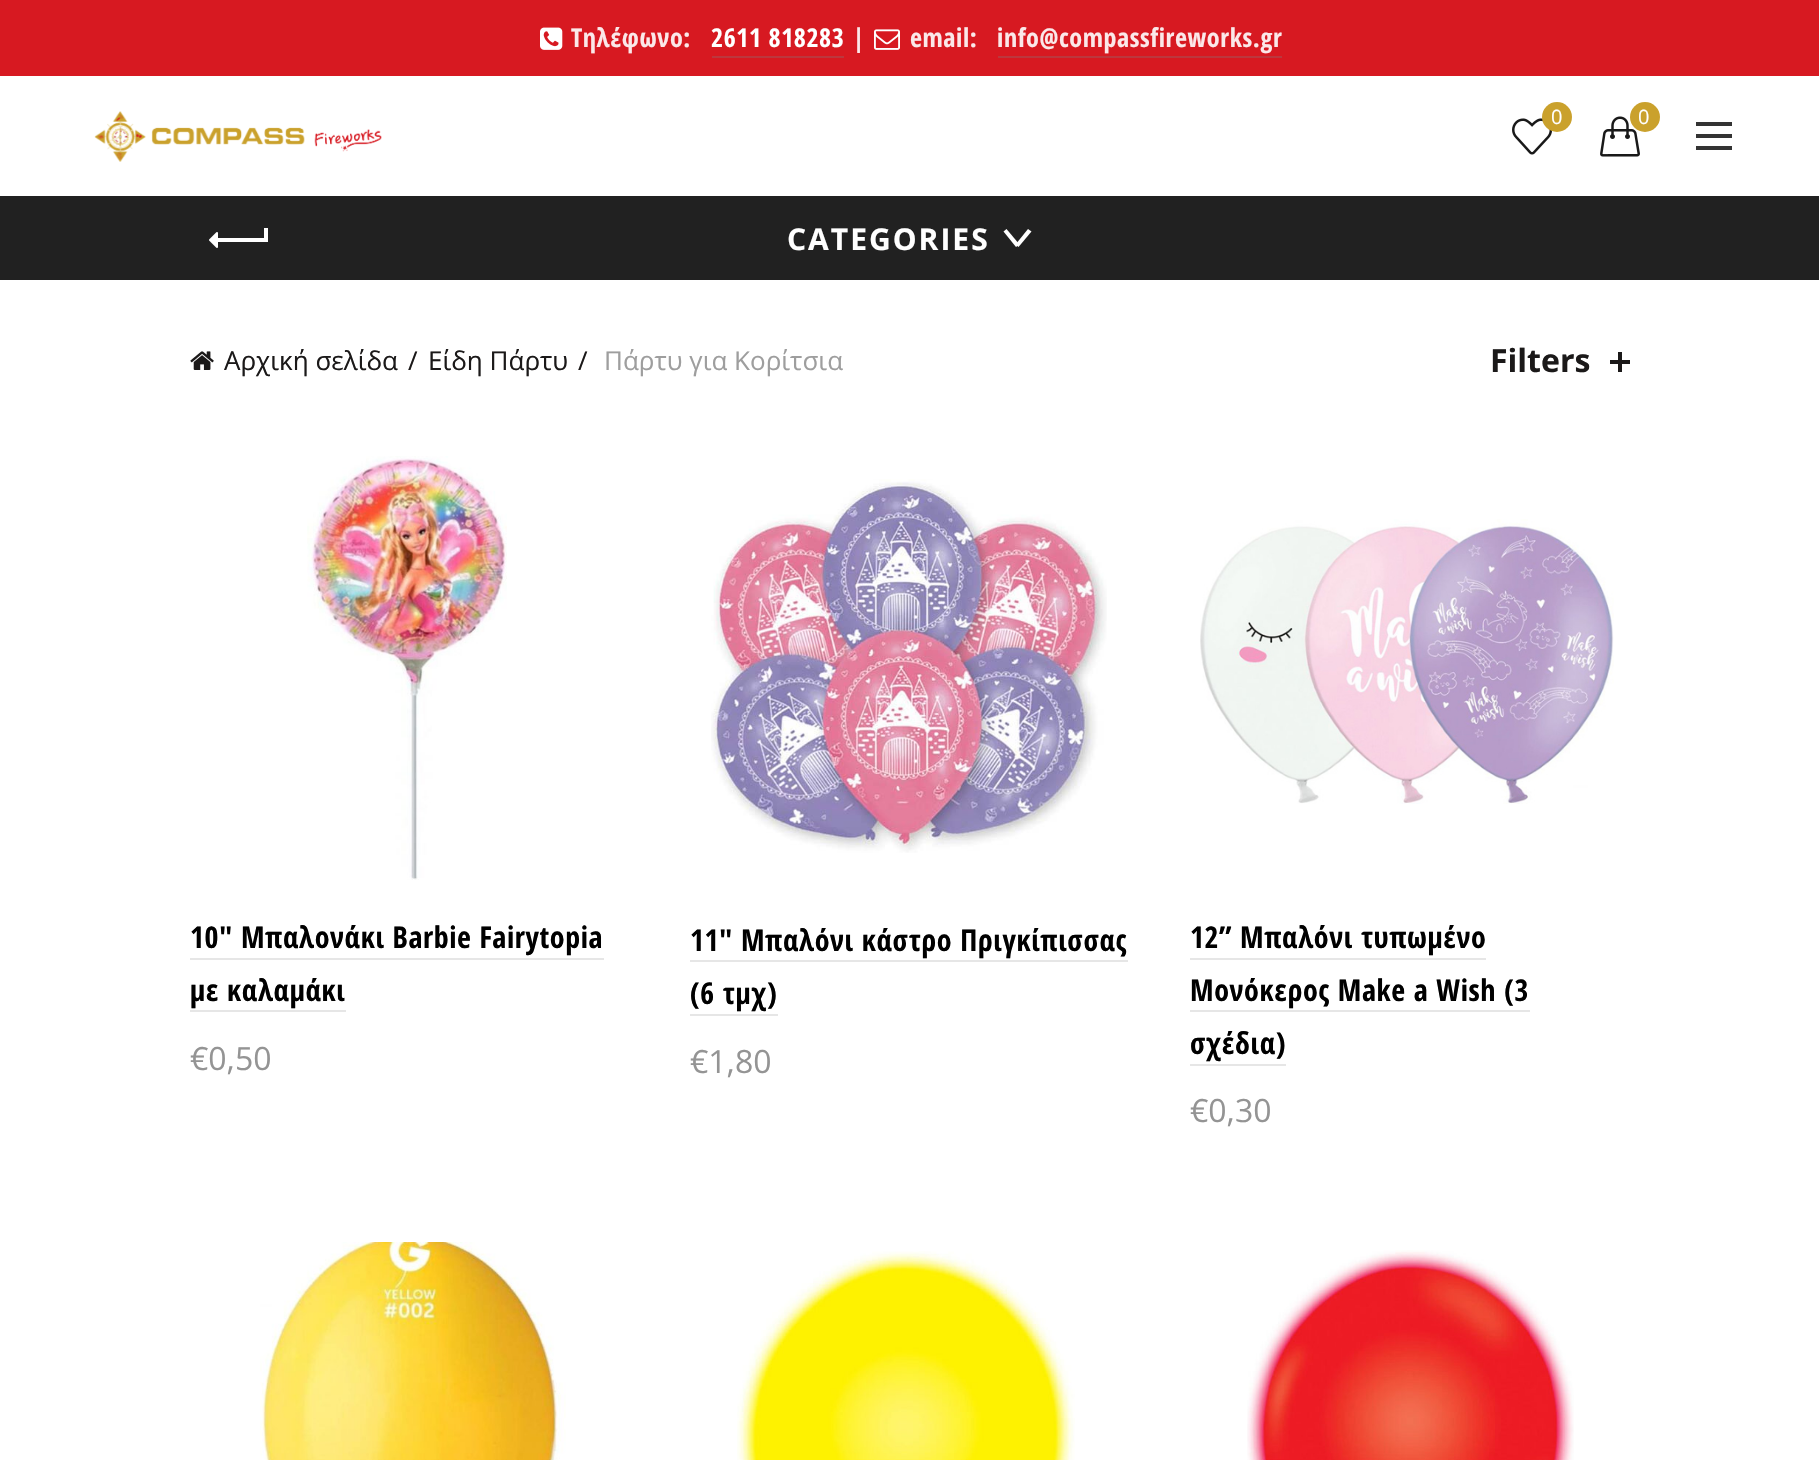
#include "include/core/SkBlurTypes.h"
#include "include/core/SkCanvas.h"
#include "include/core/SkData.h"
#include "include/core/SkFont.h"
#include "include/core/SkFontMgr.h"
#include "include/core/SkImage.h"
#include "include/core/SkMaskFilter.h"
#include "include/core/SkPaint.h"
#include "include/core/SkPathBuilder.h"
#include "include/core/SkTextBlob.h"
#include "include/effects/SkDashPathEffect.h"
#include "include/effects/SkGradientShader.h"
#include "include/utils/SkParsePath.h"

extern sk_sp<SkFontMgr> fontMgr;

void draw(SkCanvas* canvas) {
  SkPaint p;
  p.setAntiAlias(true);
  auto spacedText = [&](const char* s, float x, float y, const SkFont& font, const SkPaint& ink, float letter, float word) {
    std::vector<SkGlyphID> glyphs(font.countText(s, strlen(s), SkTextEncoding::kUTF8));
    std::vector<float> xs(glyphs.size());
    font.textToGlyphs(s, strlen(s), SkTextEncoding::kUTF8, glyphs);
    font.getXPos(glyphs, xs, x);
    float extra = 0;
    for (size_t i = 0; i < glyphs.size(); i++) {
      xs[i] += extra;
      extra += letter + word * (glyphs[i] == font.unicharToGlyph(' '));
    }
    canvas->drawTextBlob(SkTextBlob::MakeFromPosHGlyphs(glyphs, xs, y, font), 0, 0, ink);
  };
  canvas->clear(SK_ColorWHITE);
  p.setColor(SkColorSetRGB(215, 25, 33));
  canvas->drawRect(SkRect::MakeLTRB(0, 0, 1819, 76), p);
  canvas->drawImageRect(SkImages::DeferredFromEncodedData(SkData::MakeFromFileName("images/1.png")), SkRect::MakeLTRB(540, 27, 563, 50), SkSamplingOptions());
  p.setColor(SkColorSetRGB(188, 55, 61));
  canvas->drawRect(SkRect::MakeLTRB(712, 56, 844, 58), p);
  canvas->drawImageRect(SkImages::DeferredFromEncodedData(SkData::MakeFromFileName("images/2.png")), SkRect::MakeLTRB(874, 29, 900, 50), SkSamplingOptions());
  canvas->drawRect(SkRect::MakeLTRB(998, 56, 1282, 58), p);
  canvas->drawImageRect(SkImages::DeferredFromEncodedData(SkData::MakeFromFileName("images/3.png")), SkRect::MakeLTRB(94, 111, 382, 162), SkSamplingOptions());
  canvas->drawImageRect(SkImages::DeferredFromEncodedData(SkData::MakeFromFileName("images/4.png")), SkRect::MakeLTRB(1512, 118, 1552, 155), SkSamplingOptions());
  p.setColor(SkColorSetRGB(202, 161, 44));
  canvas->drawCircle(1557, 117, 15, p);
  canvas->drawImageRect(SkImages::DeferredFromEncodedData(SkData::MakeFromFileName("images/5.png")), SkRect::MakeLTRB(1600, 116, 1640, 157), SkSamplingOptions());
  canvas->drawCircle(1645, 117, 15, p);
  p.setColor(SkColorSetRGB(51, 51, 51));
  canvas->drawRect(SkRect::MakeLTRB(1696, 134, 1732, 138), p);
  canvas->drawRect(SkRect::MakeLTRB(1696, 122, 1732, 126), p);
  canvas->drawRect(SkRect::MakeLTRB(1696, 146, 1732, 150), p);
  p.setColor(SkColorSetRGB(33, 33, 33));
  canvas->drawRect(SkRect::MakeLTRB(0, 196, 1819, 280), p);
  p.setColor(SK_ColorWHITE);
  canvas->drawRect(SkRect::MakeLTRB(216, 238, 266, 242), p);
  canvas->drawImageRect(SkImages::DeferredFromEncodedData(SkData::MakeFromFileName("images/6.png")), SkRect::MakeLTRB(209, 232, 218, 248), SkSamplingOptions());
  canvas->drawRect(SkRect::MakeLTRB(264, 228, 268, 242), p);
  canvas->drawPath(SkPathBuilder().moveTo(1015.5f, 244.5f).lineTo(1028, 229).lineTo(1031.5f, 231.5f).lineTo(1018.5f, 247).close().detach(), p);
  canvas->drawPath(SkPathBuilder().moveTo(1006.5f, 229).lineTo(1019.5f, 244.5f).lineTo(1016, 247).lineTo(1003.5f, 231.5f).close().detach(), p);
  canvas->drawImageRect(SkImages::DeferredFromEncodedData(SkData::MakeFromFileName("images/7.png")), SkRect::MakeLTRB(190, 351, 214, 370), SkSamplingOptions());
  p.setColor(SkColorSetRGB(27, 25, 25));
  canvas->drawRect(SkRect::MakeLTRB(1618, 352, 1622, 372), p);
  canvas->drawRect(SkRect::MakeLTRB(1610, 360, 1630, 364), p);
  canvas->drawImageRect(SkImages::DeferredFromEncodedData(SkData::MakeFromFileName("images/8.png")), SkRect::MakeLTRB(307, 456, 507, 880), SkSamplingOptions());
  p.setColor(SkColorSetRGB(230, 230, 230));
  canvas->drawRect(SkRect::MakeLTRB(190, 958, 604, 960), p);
  canvas->drawRect(SkRect::MakeLTRB(190, 1010, 346, 1012), p);
  canvas->drawImageRect(SkImages::DeferredFromEncodedData(SkData::MakeFromFileName("images/9.png")), SkRect::MakeLTRB(711, 479, 1107, 853), SkSamplingOptions());
  canvas->drawRect(SkRect::MakeLTRB(690, 960, 1128, 962), p);
  canvas->drawRect(SkRect::MakeLTRB(690, 1014, 778, 1016), p);
  canvas->drawImageRect(SkImages::DeferredFromEncodedData(SkData::MakeFromFileName("images/10.png")), SkRect::MakeLTRB(1200, 519, 1614, 804), SkSamplingOptions());
  canvas->drawRect(SkRect::MakeLTRB(1190, 958, 1486, 960), p);
  canvas->drawRect(SkRect::MakeLTRB(1190, 1010, 1530, 1012), p);
  canvas->drawRect(SkRect::MakeLTRB(1190, 1064, 1286, 1066), p);
  canvas->drawImageRect(SkImages::DeferredFromEncodedData(SkData::MakeFromFileName("images/11.png")), SkRect::MakeLTRB(260, 1242, 566, 1460), SkSamplingOptions());
  canvas->drawImageRect(SkImages::DeferredFromEncodedData(SkData::MakeFromFileName("images/12.png")), SkRect::MakeLTRB(737, 1251, 1075, 1460), SkSamplingOptions());
  canvas->drawImageRect(SkImages::DeferredFromEncodedData(SkData::MakeFromFileName("images/13.png")), SkRect::MakeLTRB(1247, 1250, 1574, 1460), SkSamplingOptions());
  SkFont font1(fontMgr->matchFamilyStyle("Open Sans Condensed", SkFontStyle::Bold()), 26);
  font1.setSubpixel(true);
  p.setColor(SkColorSetRGB(251, 232, 233));
  spacedText("Τηλέφωνο:", 571, 47, font1, p, 0.6f, 0);
  p.setColor(SK_ColorWHITE);
  spacedText("2611 818283", 711, 47, font1, p, 0.6f, 0);
  p.setColor(SkColorSetRGB(251, 232, 233));
  spacedText("|", 852, 47, font1, p, 0.6f, 0);
  spacedText("email:", 910, 47, font1, p, 0.6f, 0);
  spacedText("info@compassfireworks.gr", 997, 47, font1, p, 0.6f, 0);
  SkFont font2(fontMgr->matchFamilyStyle("Open Sans", SkFontStyle::Normal()), 20);
  font2.setSubpixel(true);
  p.setColor(SK_ColorWHITE);
  canvas->drawString("0", 1551, 124, font2, p);
  canvas->drawString("0", 1638, 124, font2, p);
  SkFont font3(fontMgr->matchFamilyStyle("Open Sans", SkFontStyle::Bold()), 30);
  font3.setSubpixel(true);
  spacedText("CATEGORIES", 787, 250, font3, p, 2, 0);
  SkFont font4(fontMgr->matchFamilyStyle("Open Sans", SkFontStyle::Normal()), 26);
  font4.setSubpixel(true);
  p.setColor(SkColorSetRGB(27, 25, 25));
  canvas->drawString("Αρχική σελίδα", 224, 370, font4, p);
  canvas->drawString("/", 408, 370, font4, p);
  canvas->drawString("Είδη Πάρτυ", 428, 370, font4, p);
  canvas->drawString("/", 578, 370, font4, p);
  p.setColor(SkColorSetRGB(158, 158, 158));
  canvas->drawString("Πάρτυ για Κορίτσια", 604, 370, font4, p);
  SkFont font5(fontMgr->matchFamilyStyle("Open Sans", SkFontStyle::Bold()), 32);
  font5.setSubpixel(true);
  p.setColor(SkColorSetRGB(27, 25, 25));
  canvas->drawString("Filters", 1490, 372, font5, p);
  SkFont font6(fontMgr->matchFamilyStyle("Open Sans Condensed", SkFontStyle::Bold()), 30);
  font6.setSubpixel(true);
  p.setColor(SK_ColorBLACK);
  spacedText("10″ Μπαλονάκι Barbie Fairytopia", 190, 948, font6, p, 0.6f, 0);
  spacedText("με καλαμάκι", 190, 1001, font6, p, 0.6f, 0);
  SkFont font7(fontMgr->matchFamilyStyle("Open Sans", SkFontStyle::Normal()), 32);
  font7.setSubpixel(true);
  p.setColor(SkColorSetRGB(148, 148, 148));
  canvas->drawString("€0,50", 190, 1070, font7, p);
  p.setColor(SK_ColorBLACK);
  spacedText("11″ Μπαλόνι κάστρο Πριγκίπισσας", 690, 951, font6, p, 0.6f, 0);
  spacedText("(6 τμχ)", 690, 1004, font6, p, 0.6f, 0);
  p.setColor(SkColorSetRGB(148, 148, 148));
  canvas->drawString("€1,80", 690, 1073, font7, p);
  p.setColor(SK_ColorBLACK);
  spacedText("12” Μπαλόνι τυπωμένο", 1190, 948, font6, p, 0.6f, 0);
  spacedText("Μονόκερος Make a Wish (3", 1190, 1001, font6, p, 0.6f, 0);
  spacedText("σχέδια)", 1190, 1054, font6, p, 0.6f, 0);
  p.setColor(SkColorSetRGB(148, 148, 148));
  canvas->drawString("€0,30", 1190, 1122, font7, p);
}
